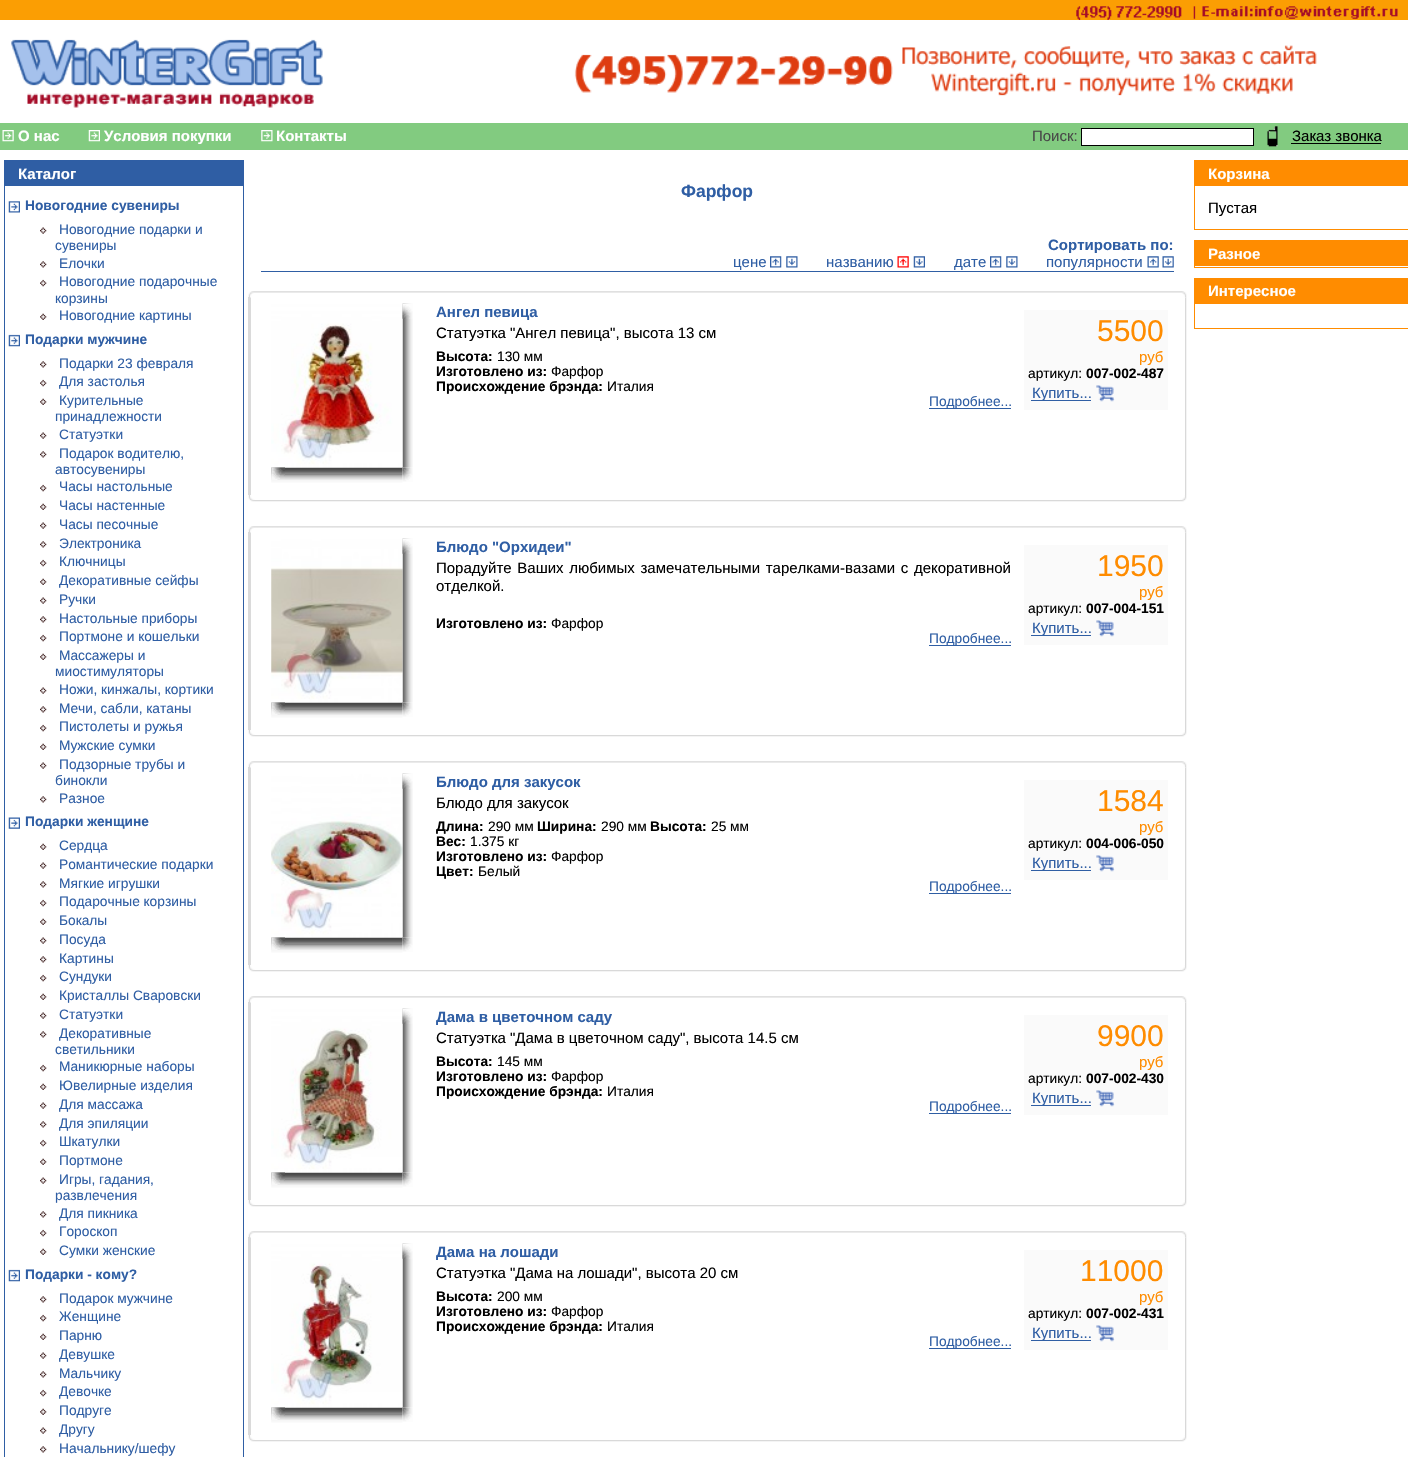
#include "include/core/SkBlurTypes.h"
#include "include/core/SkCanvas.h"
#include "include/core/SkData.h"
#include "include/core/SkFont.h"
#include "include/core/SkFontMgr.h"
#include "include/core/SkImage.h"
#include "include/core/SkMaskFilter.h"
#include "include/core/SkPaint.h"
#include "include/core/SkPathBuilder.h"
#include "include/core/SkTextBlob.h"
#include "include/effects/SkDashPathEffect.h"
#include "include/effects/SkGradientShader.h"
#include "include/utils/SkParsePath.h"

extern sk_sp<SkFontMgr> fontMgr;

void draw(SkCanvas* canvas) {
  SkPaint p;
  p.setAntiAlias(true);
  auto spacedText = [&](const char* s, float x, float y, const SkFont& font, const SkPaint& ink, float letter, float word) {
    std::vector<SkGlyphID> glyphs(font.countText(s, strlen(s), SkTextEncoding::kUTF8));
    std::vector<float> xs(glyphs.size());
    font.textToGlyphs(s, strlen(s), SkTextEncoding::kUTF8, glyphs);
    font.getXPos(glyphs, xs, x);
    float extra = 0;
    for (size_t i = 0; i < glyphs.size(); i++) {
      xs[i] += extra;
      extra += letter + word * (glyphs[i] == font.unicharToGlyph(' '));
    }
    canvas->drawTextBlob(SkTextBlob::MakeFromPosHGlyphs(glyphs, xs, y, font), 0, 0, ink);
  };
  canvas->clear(SK_ColorWHITE);
  p.setColor(SkColorSetRGB(251, 158, 3));
  canvas->drawRect(SkRect::MakeLTRB(0, 0, 1408, 20), p);
  canvas->drawImageRect(SkImages::DeferredFromEncodedData(SkData::MakeFromFileName("images/1.png")), SkRect::MakeLTRB(1076, 6, 1398, 20), SkSamplingOptions());
  canvas->drawImageRect(SkImages::DeferredFromEncodedData(SkData::MakeFromFileName("images/2.png")), SkRect::MakeLTRB(11, 39, 323, 108), SkSamplingOptions());
  canvas->drawImageRect(SkImages::DeferredFromEncodedData(SkData::MakeFromFileName("images/3.png")), SkRect::MakeLTRB(574, 45, 1317, 96), SkSamplingOptions());
  p.setColor(SkColorSetRGB(130, 203, 128));
  canvas->drawRect(SkRect::MakeLTRB(0, 123, 1408, 150), p);
  canvas->drawImageRect(SkImages::DeferredFromEncodedData(SkData::MakeFromFileName("images/4.png")), SkRect::MakeLTRB(2, 130, 14, 142), SkSamplingOptions());
  canvas->drawImageRect(SkImages::DeferredFromEncodedData(SkData::MakeFromFileName("images/5.png")), SkRect::MakeLTRB(88, 130, 100, 142), SkSamplingOptions());
  canvas->drawImageRect(SkImages::DeferredFromEncodedData(SkData::MakeFromFileName("images/6.png")), SkRect::MakeLTRB(261, 130, 273, 142), SkSamplingOptions());
  p.setColor(SK_ColorWHITE);
  canvas->drawRect(SkRect::MakeLTRB(1081.5f, 128.5f, 1253.5f, 145.5f), p);
  p.setStyle(SkPaint::kStroke_Style);
  p.setStrokeWidth(1);
  p.setColor(SK_ColorBLACK);
  canvas->drawRect(SkRect::MakeLTRB(1081.5f, 128.5f, 1253.5f, 145.5f), p);
  canvas->drawImageRect(SkImages::DeferredFromEncodedData(SkData::MakeFromFileName("images/7.png")), SkRect::MakeLTRB(1267, 126, 1278, 147), SkSamplingOptions());
  p.setStyle(SkPaint::kFill_Style);
  canvas->drawRect(SkRect::MakeLTRB(1291, 143, 1381, 144), p);
  p.setStyle(SkPaint::kStroke_Style);
  p.setColor(SkColorSetRGB(47, 94, 164));
  canvas->drawRect(SkRect::MakeLTRB(4.5f, 160.5f, 243.5f, 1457.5f), p);
  p.setStyle(SkPaint::kFill_Style);
  canvas->drawRect(SkRect::MakeLTRB(5, 161, 243, 186), p);
  canvas->drawImageRect(SkImages::DeferredFromEncodedData(SkData::MakeFromFileName("images/8.png")), SkRect::MakeLTRB(8, 201, 20, 213), SkSamplingOptions());
  canvas->drawImageRect(SkImages::DeferredFromEncodedData(SkData::MakeFromFileName("images/9.png")), SkRect::MakeLTRB(40, 227, 47, 234), SkSamplingOptions());
  canvas->drawImageRect(SkImages::DeferredFromEncodedData(SkData::MakeFromFileName("images/10.png")), SkRect::MakeLTRB(40, 261, 47, 268), SkSamplingOptions());
  canvas->drawImageRect(SkImages::DeferredFromEncodedData(SkData::MakeFromFileName("images/11.png")), SkRect::MakeLTRB(40, 279, 47, 287), SkSamplingOptions());
  canvas->drawImageRect(SkImages::DeferredFromEncodedData(SkData::MakeFromFileName("images/12.png")), SkRect::MakeLTRB(40, 313, 47, 320), SkSamplingOptions());
  canvas->drawImageRect(SkImages::DeferredFromEncodedData(SkData::MakeFromFileName("images/13.png")), SkRect::MakeLTRB(8, 334, 20, 347), SkSamplingOptions());
  canvas->drawImageRect(SkImages::DeferredFromEncodedData(SkData::MakeFromFileName("images/10.png")), SkRect::MakeLTRB(40, 361, 47, 368), SkSamplingOptions());
  canvas->drawImageRect(SkImages::DeferredFromEncodedData(SkData::MakeFromFileName("images/11.png")), SkRect::MakeLTRB(40, 379, 47, 387), SkSamplingOptions());
  canvas->drawImageRect(SkImages::DeferredFromEncodedData(SkData::MakeFromFileName("images/12.png")), SkRect::MakeLTRB(40, 398, 47, 405), SkSamplingOptions());
  canvas->drawImageRect(SkImages::DeferredFromEncodedData(SkData::MakeFromFileName("images/9.png")), SkRect::MakeLTRB(40, 432, 47, 439), SkSamplingOptions());
  canvas->drawImageRect(SkImages::DeferredFromEncodedData(SkData::MakeFromFileName("images/10.png")), SkRect::MakeLTRB(40, 451, 47, 458), SkSamplingOptions());
  canvas->drawImageRect(SkImages::DeferredFromEncodedData(SkData::MakeFromFileName("images/11.png")), SkRect::MakeLTRB(40, 484, 47, 492), SkSamplingOptions());
  canvas->drawImageRect(SkImages::DeferredFromEncodedData(SkData::MakeFromFileName("images/12.png")), SkRect::MakeLTRB(40, 503, 47, 510), SkSamplingOptions());
  canvas->drawImageRect(SkImages::DeferredFromEncodedData(SkData::MakeFromFileName("images/9.png")), SkRect::MakeLTRB(40, 522, 47, 529), SkSamplingOptions());
  canvas->drawImageRect(SkImages::DeferredFromEncodedData(SkData::MakeFromFileName("images/10.png")), SkRect::MakeLTRB(40, 541, 47, 548), SkSamplingOptions());
  canvas->drawImageRect(SkImages::DeferredFromEncodedData(SkData::MakeFromFileName("images/11.png")), SkRect::MakeLTRB(40, 559, 47, 567), SkSamplingOptions());
  canvas->drawImageRect(SkImages::DeferredFromEncodedData(SkData::MakeFromFileName("images/12.png")), SkRect::MakeLTRB(40, 578, 47, 585), SkSamplingOptions());
  canvas->drawImageRect(SkImages::DeferredFromEncodedData(SkData::MakeFromFileName("images/9.png")), SkRect::MakeLTRB(40, 597, 47, 604), SkSamplingOptions());
  canvas->drawImageRect(SkImages::DeferredFromEncodedData(SkData::MakeFromFileName("images/10.png")), SkRect::MakeLTRB(40, 616, 47, 623), SkSamplingOptions());
  canvas->drawImageRect(SkImages::DeferredFromEncodedData(SkData::MakeFromFileName("images/11.png")), SkRect::MakeLTRB(40, 634, 47, 642), SkSamplingOptions());
  canvas->drawImageRect(SkImages::DeferredFromEncodedData(SkData::MakeFromFileName("images/12.png")), SkRect::MakeLTRB(40, 653, 47, 660), SkSamplingOptions());
  canvas->drawImageRect(SkImages::DeferredFromEncodedData(SkData::MakeFromFileName("images/9.png")), SkRect::MakeLTRB(40, 687, 47, 694), SkSamplingOptions());
  canvas->drawImageRect(SkImages::DeferredFromEncodedData(SkData::MakeFromFileName("images/10.png")), SkRect::MakeLTRB(40, 706, 47, 713), SkSamplingOptions());
  canvas->drawImageRect(SkImages::DeferredFromEncodedData(SkData::MakeFromFileName("images/11.png")), SkRect::MakeLTRB(40, 724, 47, 732), SkSamplingOptions());
  canvas->drawImageRect(SkImages::DeferredFromEncodedData(SkData::MakeFromFileName("images/12.png")), SkRect::MakeLTRB(40, 743, 47, 750), SkSamplingOptions());
  canvas->drawImageRect(SkImages::DeferredFromEncodedData(SkData::MakeFromFileName("images/9.png")), SkRect::MakeLTRB(40, 762, 47, 769), SkSamplingOptions());
  canvas->drawImageRect(SkImages::DeferredFromEncodedData(SkData::MakeFromFileName("images/10.png")), SkRect::MakeLTRB(40, 796, 47, 803), SkSamplingOptions());
  canvas->drawImageRect(SkImages::DeferredFromEncodedData(SkData::MakeFromFileName("images/14.png")), SkRect::MakeLTRB(8, 817, 20, 829), SkSamplingOptions());
  canvas->drawImageRect(SkImages::DeferredFromEncodedData(SkData::MakeFromFileName("images/12.png")), SkRect::MakeLTRB(40, 843, 47, 850), SkSamplingOptions());
  canvas->drawImageRect(SkImages::DeferredFromEncodedData(SkData::MakeFromFileName("images/9.png")), SkRect::MakeLTRB(40, 862, 47, 869), SkSamplingOptions());
  canvas->drawImageRect(SkImages::DeferredFromEncodedData(SkData::MakeFromFileName("images/10.png")), SkRect::MakeLTRB(40, 881, 47, 888), SkSamplingOptions());
  canvas->drawImageRect(SkImages::DeferredFromEncodedData(SkData::MakeFromFileName("images/11.png")), SkRect::MakeLTRB(40, 899, 47, 907), SkSamplingOptions());
  canvas->drawImageRect(SkImages::DeferredFromEncodedData(SkData::MakeFromFileName("images/12.png")), SkRect::MakeLTRB(40, 918, 47, 925), SkSamplingOptions());
  canvas->drawImageRect(SkImages::DeferredFromEncodedData(SkData::MakeFromFileName("images/9.png")), SkRect::MakeLTRB(40, 937, 47, 944), SkSamplingOptions());
  canvas->drawImageRect(SkImages::DeferredFromEncodedData(SkData::MakeFromFileName("images/10.png")), SkRect::MakeLTRB(40, 956, 47, 963), SkSamplingOptions());
  canvas->drawImageRect(SkImages::DeferredFromEncodedData(SkData::MakeFromFileName("images/11.png")), SkRect::MakeLTRB(40, 974, 47, 982), SkSamplingOptions());
  canvas->drawImageRect(SkImages::DeferredFromEncodedData(SkData::MakeFromFileName("images/12.png")), SkRect::MakeLTRB(40, 993, 47, 1000), SkSamplingOptions());
  canvas->drawImageRect(SkImages::DeferredFromEncodedData(SkData::MakeFromFileName("images/9.png")), SkRect::MakeLTRB(40, 1012, 47, 1019), SkSamplingOptions());
  canvas->drawImageRect(SkImages::DeferredFromEncodedData(SkData::MakeFromFileName("images/15.png")), SkRect::MakeLTRB(40, 1031, 47, 1038), SkSamplingOptions());
  canvas->drawImageRect(SkImages::DeferredFromEncodedData(SkData::MakeFromFileName("images/11.png")), SkRect::MakeLTRB(40, 1064, 47, 1072), SkSamplingOptions());
  canvas->drawImageRect(SkImages::DeferredFromEncodedData(SkData::MakeFromFileName("images/12.png")), SkRect::MakeLTRB(40, 1083, 47, 1090), SkSamplingOptions());
  canvas->drawImageRect(SkImages::DeferredFromEncodedData(SkData::MakeFromFileName("images/9.png")), SkRect::MakeLTRB(40, 1102, 47, 1109), SkSamplingOptions());
  canvas->drawImageRect(SkImages::DeferredFromEncodedData(SkData::MakeFromFileName("images/10.png")), SkRect::MakeLTRB(40, 1121, 47, 1128), SkSamplingOptions());
  canvas->drawImageRect(SkImages::DeferredFromEncodedData(SkData::MakeFromFileName("images/11.png")), SkRect::MakeLTRB(40, 1139, 47, 1147), SkSamplingOptions());
  canvas->drawImageRect(SkImages::DeferredFromEncodedData(SkData::MakeFromFileName("images/12.png")), SkRect::MakeLTRB(40, 1158, 47, 1165), SkSamplingOptions());
  canvas->drawImageRect(SkImages::DeferredFromEncodedData(SkData::MakeFromFileName("images/16.png")), SkRect::MakeLTRB(40, 1177, 47, 1184), SkSamplingOptions());
  canvas->drawImageRect(SkImages::DeferredFromEncodedData(SkData::MakeFromFileName("images/10.png")), SkRect::MakeLTRB(40, 1211, 47, 1218), SkSamplingOptions());
  canvas->drawImageRect(SkImages::DeferredFromEncodedData(SkData::MakeFromFileName("images/11.png")), SkRect::MakeLTRB(40, 1229, 47, 1237), SkSamplingOptions());
  canvas->drawImageRect(SkImages::DeferredFromEncodedData(SkData::MakeFromFileName("images/12.png")), SkRect::MakeLTRB(40, 1248, 47, 1255), SkSamplingOptions());
  canvas->drawImageRect(SkImages::DeferredFromEncodedData(SkData::MakeFromFileName("images/13.png")), SkRect::MakeLTRB(8, 1269, 20, 1282), SkSamplingOptions());
  canvas->drawImageRect(SkImages::DeferredFromEncodedData(SkData::MakeFromFileName("images/10.png")), SkRect::MakeLTRB(40, 1296, 47, 1303), SkSamplingOptions());
  canvas->drawImageRect(SkImages::DeferredFromEncodedData(SkData::MakeFromFileName("images/11.png")), SkRect::MakeLTRB(40, 1314, 47, 1322), SkSamplingOptions());
  canvas->drawImageRect(SkImages::DeferredFromEncodedData(SkData::MakeFromFileName("images/12.png")), SkRect::MakeLTRB(40, 1333, 47, 1340), SkSamplingOptions());
  canvas->drawImageRect(SkImages::DeferredFromEncodedData(SkData::MakeFromFileName("images/9.png")), SkRect::MakeLTRB(40, 1352, 47, 1359), SkSamplingOptions());
  canvas->drawImageRect(SkImages::DeferredFromEncodedData(SkData::MakeFromFileName("images/10.png")), SkRect::MakeLTRB(40, 1371, 47, 1378), SkSamplingOptions());
  canvas->drawImageRect(SkImages::DeferredFromEncodedData(SkData::MakeFromFileName("images/11.png")), SkRect::MakeLTRB(40, 1389, 47, 1397), SkSamplingOptions());
  canvas->drawImageRect(SkImages::DeferredFromEncodedData(SkData::MakeFromFileName("images/12.png")), SkRect::MakeLTRB(40, 1408, 47, 1415), SkSamplingOptions());
  canvas->drawImageRect(SkImages::DeferredFromEncodedData(SkData::MakeFromFileName("images/9.png")), SkRect::MakeLTRB(40, 1427, 47, 1434), SkSamplingOptions());
  canvas->drawImageRect(SkImages::DeferredFromEncodedData(SkData::MakeFromFileName("images/10.png")), SkRect::MakeLTRB(40, 1446, 47, 1453), SkSamplingOptions());
  canvas->drawRect(SkRect::MakeLTRB(261, 271, 1174, 272), p);
  canvas->drawImageRect(SkImages::DeferredFromEncodedData(SkData::MakeFromFileName("images/17.png")), SkRect::MakeLTRB(770, 256, 782, 268), SkSamplingOptions());
  canvas->drawImageRect(SkImages::DeferredFromEncodedData(SkData::MakeFromFileName("images/18.png")), SkRect::MakeLTRB(786, 256, 798, 268), SkSamplingOptions());
  canvas->drawImageRect(SkImages::DeferredFromEncodedData(SkData::MakeFromFileName("images/19.png")), SkRect::MakeLTRB(897, 256, 909, 268), SkSamplingOptions());
  canvas->drawImageRect(SkImages::DeferredFromEncodedData(SkData::MakeFromFileName("images/20.png")), SkRect::MakeLTRB(913, 256, 925, 268), SkSamplingOptions());
  canvas->drawImageRect(SkImages::DeferredFromEncodedData(SkData::MakeFromFileName("images/21.png")), SkRect::MakeLTRB(990, 256, 1002, 268), SkSamplingOptions());
  canvas->drawImageRect(SkImages::DeferredFromEncodedData(SkData::MakeFromFileName("images/18.png")), SkRect::MakeLTRB(1006, 256, 1018, 268), SkSamplingOptions());
  canvas->drawImageRect(SkImages::DeferredFromEncodedData(SkData::MakeFromFileName("images/22.png")), SkRect::MakeLTRB(1147, 256, 1159, 268), SkSamplingOptions());
  canvas->drawImageRect(SkImages::DeferredFromEncodedData(SkData::MakeFromFileName("images/23.png")), SkRect::MakeLTRB(1162, 256, 1174, 268), SkSamplingOptions());
  p.setColor(SkColorSetRGB(218, 218, 218));
  canvas->drawRect(SkRect::MakeLTRB(248, 297, 251, 495), p);
  canvas->drawImageRect(SkImages::DeferredFromEncodedData(SkData::MakeFromFileName("images/24.png")), SkRect::MakeLTRB(248, 291, 255, 298), SkSamplingOptions());
  canvas->drawImageRect(SkImages::DeferredFromEncodedData(SkData::MakeFromFileName("images/25.png")), SkRect::MakeLTRB(255, 291, 1180, 293), SkSamplingOptions());
  canvas->drawImageRect(SkImages::DeferredFromEncodedData(SkData::MakeFromFileName("images/34.png")), SkRect::MakeLTRB(1185, 297, 1187, 495), SkSamplingOptions());
  canvas->drawImageRect(SkImages::DeferredFromEncodedData(SkData::MakeFromFileName("images/26.png")), SkRect::MakeLTRB(1180, 291, 1187, 298), SkSamplingOptions());
  canvas->drawImageRect(SkImages::DeferredFromEncodedData(SkData::MakeFromFileName("images/28.png")), SkRect::MakeLTRB(402, 303, 413, 468), SkSamplingOptions());
  canvas->drawImageRect(SkImages::DeferredFromEncodedData(SkData::MakeFromFileName("images/30.png")), SkRect::MakeLTRB(271, 467, 403, 483), SkSamplingOptions());
  canvas->drawImageRect(SkImages::DeferredFromEncodedData(SkData::MakeFromFileName("images/27.png")), SkRect::MakeLTRB(271, 304, 403, 468), SkSamplingOptions());
  canvas->drawImageRect(SkImages::DeferredFromEncodedData(SkData::MakeFromFileName("images/29.png")), SkRect::MakeLTRB(402, 303, 413, 319), SkSamplingOptions());
  canvas->drawImageRect(SkImages::DeferredFromEncodedData(SkData::MakeFromFileName("images/31.png")), SkRect::MakeLTRB(271, 467, 285, 480), SkSamplingOptions());
  canvas->drawImageRect(SkImages::DeferredFromEncodedData(SkData::MakeFromFileName("images/32.png")), SkRect::MakeLTRB(402, 467, 413, 482), SkSamplingOptions());
  p.setColor(SkColorSetRGB(47, 94, 164));
  canvas->drawRect(SkRect::MakeLTRB(929, 408, 1011, 409), p);
  p.setColor(SkColorSetRGB(250, 250, 250));
  canvas->drawRect(SkRect::MakeLTRB(1024, 310, 1168, 410), p);
  p.setColor(SkColorSetRGB(47, 94, 164));
  canvas->drawRect(SkRect::MakeLTRB(1031, 400, 1091, 401), p);
  canvas->drawImageRect(SkImages::DeferredFromEncodedData(SkData::MakeFromFileName("images/33.png")), SkRect::MakeLTRB(1096, 385, 1115, 402), SkSamplingOptions());
  canvas->drawImageRect(SkImages::DeferredFromEncodedData(SkData::MakeFromFileName("images/35.png")), SkRect::MakeLTRB(248, 495, 255, 502), SkSamplingOptions());
  canvas->drawImageRect(SkImages::DeferredFromEncodedData(SkData::MakeFromFileName("images/36.png")), SkRect::MakeLTRB(255, 500, 1180, 502), SkSamplingOptions());
  canvas->drawImageRect(SkImages::DeferredFromEncodedData(SkData::MakeFromFileName("images/37.png")), SkRect::MakeLTRB(1180, 495, 1187, 502), SkSamplingOptions());
  p.setColor(SkColorSetRGB(218, 218, 218));
  canvas->drawRect(SkRect::MakeLTRB(248, 532, 251, 730), p);
  canvas->drawImageRect(SkImages::DeferredFromEncodedData(SkData::MakeFromFileName("images/24.png")), SkRect::MakeLTRB(248, 526, 255, 533), SkSamplingOptions());
  canvas->drawImageRect(SkImages::DeferredFromEncodedData(SkData::MakeFromFileName("images/38.png")), SkRect::MakeLTRB(255, 526, 1180, 528), SkSamplingOptions());
  canvas->drawImageRect(SkImages::DeferredFromEncodedData(SkData::MakeFromFileName("images/34.png")), SkRect::MakeLTRB(1185, 532, 1187, 730), SkSamplingOptions());
  canvas->drawImageRect(SkImages::DeferredFromEncodedData(SkData::MakeFromFileName("images/26.png")), SkRect::MakeLTRB(1180, 526, 1187, 533), SkSamplingOptions());
  canvas->drawImageRect(SkImages::DeferredFromEncodedData(SkData::MakeFromFileName("images/28.png")), SkRect::MakeLTRB(402, 538, 413, 703), SkSamplingOptions());
  canvas->drawImageRect(SkImages::DeferredFromEncodedData(SkData::MakeFromFileName("images/30.png")), SkRect::MakeLTRB(271, 702, 403, 718), SkSamplingOptions());
  canvas->drawImageRect(SkImages::DeferredFromEncodedData(SkData::MakeFromFileName("images/39.png")), SkRect::MakeLTRB(271, 539, 403, 703), SkSamplingOptions());
  canvas->drawImageRect(SkImages::DeferredFromEncodedData(SkData::MakeFromFileName("images/40.png")), SkRect::MakeLTRB(402, 538, 413, 554), SkSamplingOptions());
  canvas->drawImageRect(SkImages::DeferredFromEncodedData(SkData::MakeFromFileName("images/41.png")), SkRect::MakeLTRB(271, 702, 285, 715), SkSamplingOptions());
  canvas->drawImageRect(SkImages::DeferredFromEncodedData(SkData::MakeFromFileName("images/32.png")), SkRect::MakeLTRB(402, 702, 413, 717), SkSamplingOptions());
  p.setColor(SkColorSetRGB(47, 94, 164));
  canvas->drawRect(SkRect::MakeLTRB(929, 645, 1011, 646), p);
  p.setColor(SkColorSetRGB(250, 250, 250));
  canvas->drawRect(SkRect::MakeLTRB(1024, 545, 1168, 645), p);
  p.setColor(SkColorSetRGB(47, 94, 164));
  canvas->drawRect(SkRect::MakeLTRB(1031, 635, 1091, 636), p);
  canvas->drawImageRect(SkImages::DeferredFromEncodedData(SkData::MakeFromFileName("images/33.png")), SkRect::MakeLTRB(1096, 620, 1115, 637), SkSamplingOptions());
  canvas->drawImageRect(SkImages::DeferredFromEncodedData(SkData::MakeFromFileName("images/35.png")), SkRect::MakeLTRB(248, 730, 255, 737), SkSamplingOptions());
  canvas->drawImageRect(SkImages::DeferredFromEncodedData(SkData::MakeFromFileName("images/36.png")), SkRect::MakeLTRB(255, 735, 1180, 737), SkSamplingOptions());
  canvas->drawImageRect(SkImages::DeferredFromEncodedData(SkData::MakeFromFileName("images/37.png")), SkRect::MakeLTRB(1180, 730, 1187, 737), SkSamplingOptions());
  p.setColor(SkColorSetRGB(218, 218, 218));
  canvas->drawRect(SkRect::MakeLTRB(248, 767, 251, 965), p);
  canvas->drawImageRect(SkImages::DeferredFromEncodedData(SkData::MakeFromFileName("images/24.png")), SkRect::MakeLTRB(248, 761, 255, 768), SkSamplingOptions());
  canvas->drawImageRect(SkImages::DeferredFromEncodedData(SkData::MakeFromFileName("images/25.png")), SkRect::MakeLTRB(255, 761, 1180, 763), SkSamplingOptions());
  canvas->drawImageRect(SkImages::DeferredFromEncodedData(SkData::MakeFromFileName("images/34.png")), SkRect::MakeLTRB(1185, 767, 1187, 965), SkSamplingOptions());
  canvas->drawImageRect(SkImages::DeferredFromEncodedData(SkData::MakeFromFileName("images/26.png")), SkRect::MakeLTRB(1180, 761, 1187, 768), SkSamplingOptions());
  canvas->drawImageRect(SkImages::DeferredFromEncodedData(SkData::MakeFromFileName("images/28.png")), SkRect::MakeLTRB(402, 773, 413, 938), SkSamplingOptions());
  canvas->drawImageRect(SkImages::DeferredFromEncodedData(SkData::MakeFromFileName("images/30.png")), SkRect::MakeLTRB(271, 937, 403, 953), SkSamplingOptions());
  canvas->drawImageRect(SkImages::DeferredFromEncodedData(SkData::MakeFromFileName("images/42.png")), SkRect::MakeLTRB(271, 774, 403, 938), SkSamplingOptions());
  canvas->drawImageRect(SkImages::DeferredFromEncodedData(SkData::MakeFromFileName("images/43.png")), SkRect::MakeLTRB(402, 773, 413, 789), SkSamplingOptions());
  canvas->drawImageRect(SkImages::DeferredFromEncodedData(SkData::MakeFromFileName("images/44.png")), SkRect::MakeLTRB(271, 937, 285, 950), SkSamplingOptions());
  canvas->drawImageRect(SkImages::DeferredFromEncodedData(SkData::MakeFromFileName("images/32.png")), SkRect::MakeLTRB(402, 937, 413, 952), SkSamplingOptions());
  p.setColor(SkColorSetRGB(47, 94, 164));
  canvas->drawRect(SkRect::MakeLTRB(929, 893, 1011, 894), p);
  p.setColor(SkColorSetRGB(250, 250, 250));
  canvas->drawRect(SkRect::MakeLTRB(1024, 780, 1168, 880), p);
  p.setColor(SkColorSetRGB(47, 94, 164));
  canvas->drawRect(SkRect::MakeLTRB(1031, 870, 1091, 871), p);
  canvas->drawImageRect(SkImages::DeferredFromEncodedData(SkData::MakeFromFileName("images/33.png")), SkRect::MakeLTRB(1096, 855, 1115, 872), SkSamplingOptions());
  canvas->drawImageRect(SkImages::DeferredFromEncodedData(SkData::MakeFromFileName("images/35.png")), SkRect::MakeLTRB(248, 965, 255, 972), SkSamplingOptions());
  canvas->drawImageRect(SkImages::DeferredFromEncodedData(SkData::MakeFromFileName("images/36.png")), SkRect::MakeLTRB(255, 970, 1180, 972), SkSamplingOptions());
  canvas->drawImageRect(SkImages::DeferredFromEncodedData(SkData::MakeFromFileName("images/37.png")), SkRect::MakeLTRB(1180, 965, 1187, 972), SkSamplingOptions());
  p.setColor(SkColorSetRGB(218, 218, 218));
  canvas->drawRect(SkRect::MakeLTRB(248, 1002, 251, 1200), p);
  canvas->drawImageRect(SkImages::DeferredFromEncodedData(SkData::MakeFromFileName("images/24.png")), SkRect::MakeLTRB(248, 996, 255, 1003), SkSamplingOptions());
  canvas->drawImageRect(SkImages::DeferredFromEncodedData(SkData::MakeFromFileName("images/25.png")), SkRect::MakeLTRB(255, 996, 1180, 998), SkSamplingOptions());
  canvas->drawImageRect(SkImages::DeferredFromEncodedData(SkData::MakeFromFileName("images/34.png")), SkRect::MakeLTRB(1185, 1002, 1187, 1200), SkSamplingOptions());
  canvas->drawImageRect(SkImages::DeferredFromEncodedData(SkData::MakeFromFileName("images/26.png")), SkRect::MakeLTRB(1180, 996, 1187, 1003), SkSamplingOptions());
  canvas->drawImageRect(SkImages::DeferredFromEncodedData(SkData::MakeFromFileName("images/28.png")), SkRect::MakeLTRB(402, 1008, 413, 1173), SkSamplingOptions());
  canvas->drawImageRect(SkImages::DeferredFromEncodedData(SkData::MakeFromFileName("images/46.png")), SkRect::MakeLTRB(271, 1172, 403, 1188), SkSamplingOptions());
  canvas->drawImageRect(SkImages::DeferredFromEncodedData(SkData::MakeFromFileName("images/45.png")), SkRect::MakeLTRB(271, 1009, 403, 1173), SkSamplingOptions());
  canvas->drawImageRect(SkImages::DeferredFromEncodedData(SkData::MakeFromFileName("images/29.png")), SkRect::MakeLTRB(402, 1008, 413, 1024), SkSamplingOptions());
  canvas->drawImageRect(SkImages::DeferredFromEncodedData(SkData::MakeFromFileName("images/47.png")), SkRect::MakeLTRB(271, 1172, 285, 1185), SkSamplingOptions());
  canvas->drawImageRect(SkImages::DeferredFromEncodedData(SkData::MakeFromFileName("images/48.png")), SkRect::MakeLTRB(402, 1172, 413, 1187), SkSamplingOptions());
  p.setColor(SkColorSetRGB(47, 94, 164));
  canvas->drawRect(SkRect::MakeLTRB(929, 1113, 1011, 1114), p);
  p.setColor(SkColorSetRGB(250, 250, 250));
  canvas->drawRect(SkRect::MakeLTRB(1024, 1015, 1168, 1115), p);
  p.setColor(SkColorSetRGB(47, 94, 164));
  canvas->drawRect(SkRect::MakeLTRB(1031, 1105, 1091, 1106), p);
  canvas->drawImageRect(SkImages::DeferredFromEncodedData(SkData::MakeFromFileName("images/33.png")), SkRect::MakeLTRB(1096, 1090, 1115, 1107), SkSamplingOptions());
  canvas->drawImageRect(SkImages::DeferredFromEncodedData(SkData::MakeFromFileName("images/35.png")), SkRect::MakeLTRB(248, 1200, 255, 1207), SkSamplingOptions());
  canvas->drawImageRect(SkImages::DeferredFromEncodedData(SkData::MakeFromFileName("images/36.png")), SkRect::MakeLTRB(255, 1205, 1180, 1207), SkSamplingOptions());
  canvas->drawImageRect(SkImages::DeferredFromEncodedData(SkData::MakeFromFileName("images/37.png")), SkRect::MakeLTRB(1180, 1200, 1187, 1207), SkSamplingOptions());
  p.setColor(SkColorSetRGB(218, 218, 218));
  canvas->drawRect(SkRect::MakeLTRB(248, 1237, 251, 1435), p);
  canvas->drawImageRect(SkImages::DeferredFromEncodedData(SkData::MakeFromFileName("images/24.png")), SkRect::MakeLTRB(248, 1231, 255, 1238), SkSamplingOptions());
  canvas->drawImageRect(SkImages::DeferredFromEncodedData(SkData::MakeFromFileName("images/49.png")), SkRect::MakeLTRB(255, 1231, 1180, 1233), SkSamplingOptions());
  canvas->drawImageRect(SkImages::DeferredFromEncodedData(SkData::MakeFromFileName("images/34.png")), SkRect::MakeLTRB(1185, 1237, 1187, 1435), SkSamplingOptions());
  canvas->drawImageRect(SkImages::DeferredFromEncodedData(SkData::MakeFromFileName("images/26.png")), SkRect::MakeLTRB(1180, 1231, 1187, 1238), SkSamplingOptions());
  canvas->drawImageRect(SkImages::DeferredFromEncodedData(SkData::MakeFromFileName("images/28.png")), SkRect::MakeLTRB(402, 1243, 413, 1408), SkSamplingOptions());
  canvas->drawImageRect(SkImages::DeferredFromEncodedData(SkData::MakeFromFileName("images/30.png")), SkRect::MakeLTRB(271, 1407, 403, 1423), SkSamplingOptions());
  canvas->drawImageRect(SkImages::DeferredFromEncodedData(SkData::MakeFromFileName("images/50.png")), SkRect::MakeLTRB(271, 1244, 403, 1408), SkSamplingOptions());
  canvas->drawImageRect(SkImages::DeferredFromEncodedData(SkData::MakeFromFileName("images/29.png")), SkRect::MakeLTRB(402, 1243, 413, 1259), SkSamplingOptions());
  canvas->drawImageRect(SkImages::DeferredFromEncodedData(SkData::MakeFromFileName("images/31.png")), SkRect::MakeLTRB(271, 1407, 285, 1420), SkSamplingOptions());
  canvas->drawImageRect(SkImages::DeferredFromEncodedData(SkData::MakeFromFileName("images/32.png")), SkRect::MakeLTRB(402, 1407, 413, 1422), SkSamplingOptions());
  p.setColor(SkColorSetRGB(47, 94, 164));
  canvas->drawRect(SkRect::MakeLTRB(929, 1348, 1011, 1349), p);
  p.setColor(SkColorSetRGB(250, 250, 250));
  canvas->drawRect(SkRect::MakeLTRB(1024, 1250, 1168, 1350), p);
  p.setColor(SkColorSetRGB(47, 94, 164));
  canvas->drawRect(SkRect::MakeLTRB(1031, 1340, 1091, 1341), p);
  canvas->drawImageRect(SkImages::DeferredFromEncodedData(SkData::MakeFromFileName("images/33.png")), SkRect::MakeLTRB(1096, 1325, 1115, 1342), SkSamplingOptions());
  canvas->drawImageRect(SkImages::DeferredFromEncodedData(SkData::MakeFromFileName("images/35.png")), SkRect::MakeLTRB(248, 1435, 255, 1442), SkSamplingOptions());
  canvas->drawImageRect(SkImages::DeferredFromEncodedData(SkData::MakeFromFileName("images/36.png")), SkRect::MakeLTRB(255, 1440, 1180, 1442), SkSamplingOptions());
  canvas->drawImageRect(SkImages::DeferredFromEncodedData(SkData::MakeFromFileName("images/37.png")), SkRect::MakeLTRB(1180, 1435, 1187, 1442), SkSamplingOptions());
  p.setStyle(SkPaint::kStroke_Style);
  p.setColor(SkColorSetRGB(255, 140, 0));
  canvas->drawRect(SkRect::MakeLTRB(1194.5f, 160.5f, 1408.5f, 229.5f), p);
  p.setStyle(SkPaint::kFill_Style);
  canvas->drawRect(SkRect::MakeLTRB(1195, 161, 1408, 186), p);
  p.setStyle(SkPaint::kStroke_Style);
  canvas->drawRect(SkRect::MakeLTRB(1194.5f, 240.5f, 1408.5f, 267.5f), p);
  p.setStyle(SkPaint::kFill_Style);
  canvas->drawRect(SkRect::MakeLTRB(1195, 241, 1408, 266), p);
  p.setStyle(SkPaint::kStroke_Style);
  canvas->drawRect(SkRect::MakeLTRB(1194.5f, 278.5f, 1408.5f, 328.5f), p);
  p.setStyle(SkPaint::kFill_Style);
  canvas->drawRect(SkRect::MakeLTRB(1195, 279, 1408, 304), p);
  SkFont font1(fontMgr->matchFamilyStyle("Liberation Sans", SkFontStyle::Bold()), 15);
  font1.setSubpixel(true);
  p.setColor(SK_ColorWHITE);
  canvas->drawString("О нас", 18, 141, font1, p);
  canvas->drawString("Условия покупки", 104, 141, font1, p);
  canvas->drawString("Контакты", 276, 141, font1, p);
  SkFont font2(fontMgr->matchFamilyStyle("Liberation Sans", SkFontStyle::Normal()), 15);
  font2.setSubpixel(true);
  p.setColor(SkColorSetRGB(72, 72, 72));
  canvas->drawString("Поиск:", 1032, 141, font2, p);
  p.setColor(SK_ColorBLACK);
  canvas->drawString("Заказ звонка", 1292, 141, font2, p);
  p.setColor(SK_ColorWHITE);
  canvas->drawString("Каталог", 18, 179, font1, p);
  SkFont font3(fontMgr->matchFamilyStyle("Liberation Sans", SkFontStyle::Bold()), 13.75f);
  font3.setSubpixel(true);
  p.setColor(SkColorSetRGB(47, 94, 164));
  canvas->drawString("Новогодние сувениры", 25, 210, font3, p);
  SkFont font4(fontMgr->matchFamilyStyle("Liberation Sans", SkFontStyle::Normal()), 13.75f);
  font4.setSubpixel(true);
  canvas->drawString("Новогодние подарки и", 59, 234, font4, p);
  canvas->drawString("сувениры", 55, 250, font4, p);
  canvas->drawString("Елочки", 59, 268, font4, p);
  canvas->drawString("Новогодние подарочные", 59, 286, font4, p);
  canvas->drawString("корзины", 55, 303, font4, p);
  canvas->drawString("Новогодние картины", 59, 320, font4, p);
  canvas->drawString("Подарки мужчине", 25, 344, font3, p);
  canvas->drawString("Подарки 23 февраля", 59, 368, font4, p);
  canvas->drawString("Для застолья", 59, 386, font4, p);
  canvas->drawString("Курительные", 59, 405, font4, p);
  canvas->drawString("принадлежности", 55, 421, font4, p);
  canvas->drawString("Статуэтки", 59, 439, font4, p);
  canvas->drawString("Подарок водителю,", 59, 458, font4, p);
  canvas->drawString("автосувениры", 55, 474, font4, p);
  canvas->drawString("Часы настольные", 59, 491, font4, p);
  canvas->drawString("Часы настенные", 59, 510, font4, p);
  canvas->drawString("Часы песочные", 59, 529, font4, p);
  canvas->drawString("Электроника", 59, 548, font4, p);
  canvas->drawString("Ключницы", 59, 566, font4, p);
  canvas->drawString("Декоративные сейфы", 59, 585, font4, p);
  canvas->drawString("Ручки", 59, 604, font4, p);
  canvas->drawString("Настольные приборы", 59, 623, font4, p);
  canvas->drawString("Портмоне и кошельки", 59, 641, font4, p);
  canvas->drawString("Массажеры и", 59, 660, font4, p);
  canvas->drawString("миостимуляторы", 55, 676, font4, p);
  canvas->drawString("Ножи, кинжалы, кортики", 59, 694, font4, p);
  canvas->drawString("Мечи, сабли, катаны", 59, 713, font4, p);
  canvas->drawString("Пистолеты и ружья", 59, 731, font4, p);
  canvas->drawString("Мужские сумки", 59, 750, font4, p);
  canvas->drawString("Подзорные трубы и", 59, 769, font4, p);
  canvas->drawString("бинокли", 55, 785, font4, p);
  canvas->drawString("Разное", 59, 803, font4, p);
  canvas->drawString("Подарки женщине", 25, 826, font3, p);
  canvas->drawString("Сердца", 59, 850, font4, p);
  canvas->drawString("Романтические подарки", 59, 869, font4, p);
  canvas->drawString("Мягкие игрушки", 59, 888, font4, p);
  canvas->drawString("Подарочные корзины", 59, 906, font4, p);
  canvas->drawString("Бокалы", 59, 925, font4, p);
  canvas->drawString("Посуда", 59, 944, font4, p);
  canvas->drawString("Картины", 59, 963, font4, p);
  canvas->drawString("Сундуки", 59, 981, font4, p);
  canvas->drawString("Кристаллы Сваровски", 59, 1000, font4, p);
  canvas->drawString("Статуэтки", 59, 1019, font4, p);
  canvas->drawString("Декоративные", 59, 1038, font4, p);
  canvas->drawString("светильники", 55, 1054, font4, p);
  canvas->drawString("Маникюрные наборы", 59, 1071, font4, p);
  canvas->drawString("Ювелирные изделия", 59, 1090, font4, p);
  canvas->drawString("Для массажа", 59, 1109, font4, p);
  canvas->drawString("Для эпиляции", 59, 1128, font4, p);
  canvas->drawString("Шкатулки", 59, 1146, font4, p);
  canvas->drawString("Портмоне", 59, 1165, font4, p);
  canvas->drawString("Игры, гадания,", 59, 1184, font4, p);
  canvas->drawString("развлечения", 55, 1200, font4, p);
  canvas->drawString("Для пикника", 59, 1218, font4, p);
  canvas->drawString("Гороскоп", 59, 1236, font4, p);
  canvas->drawString("Сумки женские", 59, 1255, font4, p);
  canvas->drawString("Подарки - кому?", 25, 1279, font3, p);
  canvas->drawString("Подарок мужчине", 59, 1303, font4, p);
  canvas->drawString("Женщине", 59, 1321, font4, p);
  canvas->drawString("Парню", 59, 1340, font4, p);
  canvas->drawString("Девушке", 59, 1359, font4, p);
  canvas->drawString("Мальчику", 59, 1378, font4, p);
  canvas->drawString("Девочке", 59, 1396, font4, p);
  canvas->drawString("Подруге", 59, 1415, font4, p);
  canvas->drawString("Другу", 59, 1434, font4, p);
  canvas->drawString("Начальнику/шефу", 59, 1453, font4, p);
  SkFont font5(fontMgr->matchFamilyStyle("Liberation Sans", SkFontStyle::Bold()), 17.5f);
  font5.setSubpixel(true);
  canvas->drawString("Фарфор", 681, 197, font5, p);
  canvas->drawString("Сортировать по:", 1048, 250, font1, p);
  canvas->drawString("цене", 733, 267, font2, p);
  canvas->drawString("названию", 826, 267, font2, p);
  canvas->drawString("дате", 954, 267, font2, p);
  canvas->drawString("популярности", 1046, 267, font2, p);
  canvas->drawString("Ангел певица", 436, 317, font1, p);
  p.setColor(SK_ColorBLACK);
  canvas->drawString("Статуэтка \"Ангел певица\", высота 13 см", 436, 338, font2, p);
  canvas->drawString("Высота:", 436, 361, font3, p);
  canvas->drawString("130 мм", 497, 361, font4, p);
  canvas->drawString("Изготовлено из:", 436, 376, font3, p);
  canvas->drawString("Фарфор", 551, 376, font4, p);
  canvas->drawString("Происхождение брэнда:", 436, 391, font3, p);
  canvas->drawString("Италия", 607, 391, font4, p);
  p.setColor(SkColorSetRGB(47, 94, 164));
  canvas->drawString("Подробнее...", 929, 406, font4, p);
  SkFont font6(fontMgr->matchFamilyStyle("Liberation Sans", SkFontStyle::Normal()), 30);
  font6.setSubpixel(true);
  p.setColor(SkColorSetRGB(255, 140, 0));
  canvas->drawString("5500", 1097, 341, font6, p);
  canvas->drawString("руб", 1139, 362, font2, p);
  p.setColor(SK_ColorBLACK);
  canvas->drawString("артикул:", 1028, 378, font4, p);
  canvas->drawString("007-002-487", 1086, 378, font3, p);
  p.setColor(SkColorSetRGB(47, 94, 164));
  canvas->drawString("Купить...", 1032, 398, font2, p);
  canvas->drawString("Блюдо \"Орхидеи\"", 436, 552, font1, p);
  p.setColor(SK_ColorBLACK);
  spacedText("Порадуйте Ваших любимых замечательными тарелками-вазами с декоративной", 436, 573, font2, p, 0, 1.5f);
  canvas->drawString("отделкой.", 436, 591, font2, p);
  canvas->drawString("Изготовлено из:", 436, 628, font3, p);
  canvas->drawString("Фарфор", 551, 628, font4, p);
  p.setColor(SkColorSetRGB(47, 94, 164));
  canvas->drawString("Подробнее...", 929, 643, font4, p);
  p.setColor(SkColorSetRGB(255, 140, 0));
  canvas->drawString("1950", 1097, 576, font6, p);
  canvas->drawString("руб", 1139, 597, font2, p);
  p.setColor(SK_ColorBLACK);
  canvas->drawString("артикул:", 1028, 613, font4, p);
  canvas->drawString("007-004-151", 1086, 613, font3, p);
  p.setColor(SkColorSetRGB(47, 94, 164));
  canvas->drawString("Купить...", 1032, 633, font2, p);
  canvas->drawString("Блюдо для закусок", 436, 787, font1, p);
  p.setColor(SK_ColorBLACK);
  canvas->drawString("Блюдо для закусок", 436, 808, font2, p);
  canvas->drawString("Длина:", 436, 831, font3, p);
  canvas->drawString("290 мм", 488, 831, font4, p);
  canvas->drawString("Ширина:", 537, 831, font3, p);
  canvas->drawString("290 мм", 601, 831, font4, p);
  canvas->drawString("Высота:", 650, 831, font3, p);
  canvas->drawString("25 мм", 711, 831, font4, p);
  canvas->drawString("Вес:", 436, 846, font3, p);
  canvas->drawString("1.375 кг", 470, 846, font4, p);
  canvas->drawString("Изготовлено из:", 436, 861, font3, p);
  canvas->drawString("Фарфор", 551, 861, font4, p);
  canvas->drawString("Цвет:", 436, 876, font3, p);
  canvas->drawString("Белый", 478, 876, font4, p);
  p.setColor(SkColorSetRGB(47, 94, 164));
  canvas->drawString("Подробнее...", 929, 891, font4, p);
  p.setColor(SkColorSetRGB(255, 140, 0));
  canvas->drawString("1584", 1097, 811, font6, p);
  canvas->drawString("руб", 1139, 832, font2, p);
  p.setColor(SK_ColorBLACK);
  canvas->drawString("артикул:", 1028, 848, font4, p);
  canvas->drawString("004-006-050", 1086, 848, font3, p);
  p.setColor(SkColorSetRGB(47, 94, 164));
  canvas->drawString("Купить...", 1032, 868, font2, p);
  canvas->drawString("Дама в цветочном саду", 436, 1022, font1, p);
  p.setColor(SK_ColorBLACK);
  canvas->drawString("Статуэтка \"Дама в цветочном саду\", высота 14.5 см", 436, 1043, font2, p);
  canvas->drawString("Высота:", 436, 1066, font3, p);
  canvas->drawString("145 мм", 497, 1066, font4, p);
  canvas->drawString("Изготовлено из:", 436, 1081, font3, p);
  canvas->drawString("Фарфор", 551, 1081, font4, p);
  canvas->drawString("Происхождение брэнда:", 436, 1096, font3, p);
  canvas->drawString("Италия", 607, 1096, font4, p);
  p.setColor(SkColorSetRGB(47, 94, 164));
  canvas->drawString("Подробнее...", 929, 1111, font4, p);
  p.setColor(SkColorSetRGB(255, 140, 0));
  canvas->drawString("9900", 1097, 1046, font6, p);
  canvas->drawString("руб", 1139, 1067, font2, p);
  p.setColor(SK_ColorBLACK);
  canvas->drawString("артикул:", 1028, 1083, font4, p);
  canvas->drawString("007-002-430", 1086, 1083, font3, p);
  p.setColor(SkColorSetRGB(47, 94, 164));
  canvas->drawString("Купить...", 1032, 1103, font2, p);
  canvas->drawString("Дама на лошади", 436, 1257, font1, p);
  p.setColor(SK_ColorBLACK);
  canvas->drawString("Статуэтка \"Дама на лошади\", высота 20 см", 436, 1278, font2, p);
  canvas->drawString("Высота:", 436, 1301, font3, p);
  canvas->drawString("200 мм", 497, 1301, font4, p);
  canvas->drawString("Изготовлено из:", 436, 1316, font3, p);
  canvas->drawString("Фарфор", 551, 1316, font4, p);
  canvas->drawString("Происхождение брэнда:", 436, 1331, font3, p);
  canvas->drawString("Италия", 607, 1331, font4, p);
  p.setColor(SkColorSetRGB(47, 94, 164));
  canvas->drawString("Подробнее...", 929, 1346, font4, p);
  p.setColor(SkColorSetRGB(255, 140, 0));
  canvas->drawString("11000", 1080, 1281, font6, p);
  canvas->drawString("руб", 1139, 1302, font2, p);
  p.setColor(SK_ColorBLACK);
  canvas->drawString("артикул:", 1028, 1318, font4, p);
  canvas->drawString("007-002-431", 1086, 1318, font3, p);
  p.setColor(SkColorSetRGB(47, 94, 164));
  canvas->drawString("Купить...", 1032, 1338, font2, p);
  p.setColor(SK_ColorWHITE);
  canvas->drawString("Корзина", 1208, 179, font1, p);
  p.setColor(SK_ColorBLACK);
  canvas->drawString("Пустая", 1208, 213, font2, p);
  p.setColor(SK_ColorWHITE);
  canvas->drawString("Разное", 1208, 259, font1, p);
  canvas->drawString("Интересное", 1208, 296, font1, p);
}
